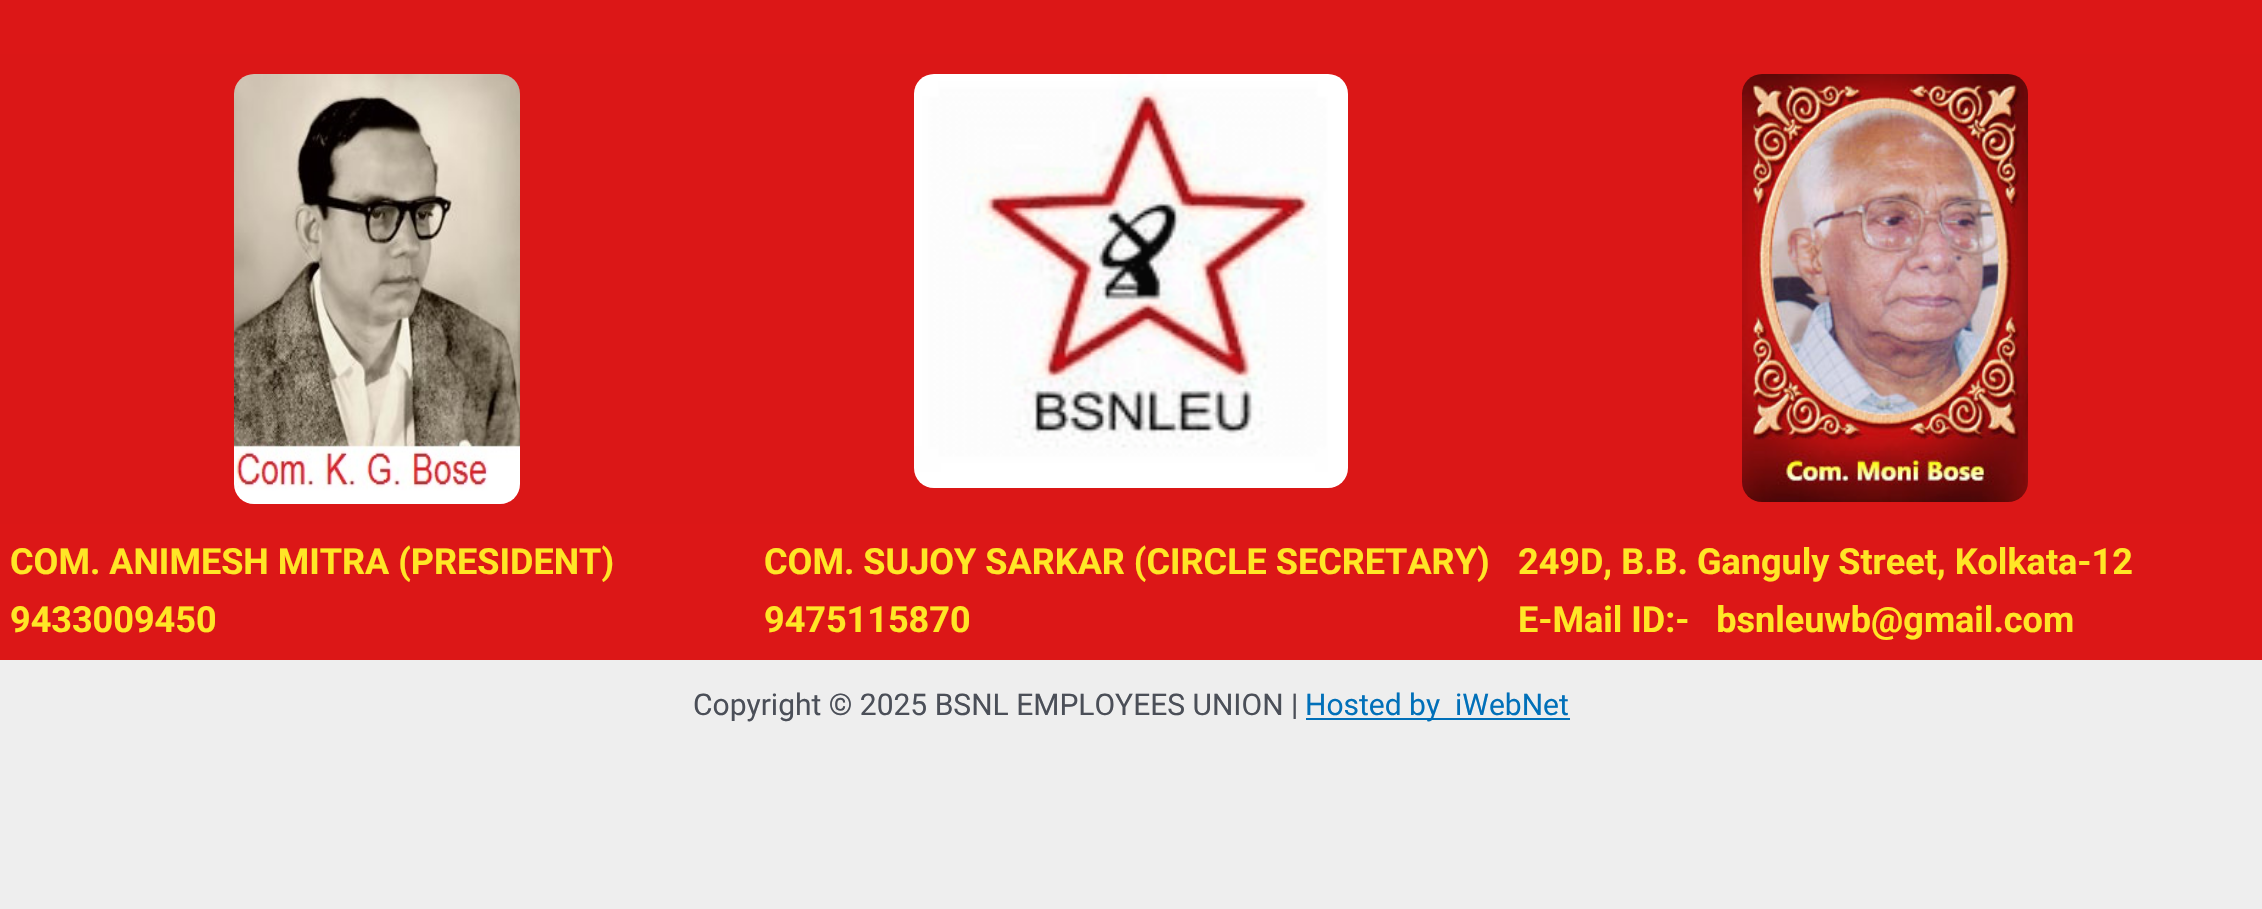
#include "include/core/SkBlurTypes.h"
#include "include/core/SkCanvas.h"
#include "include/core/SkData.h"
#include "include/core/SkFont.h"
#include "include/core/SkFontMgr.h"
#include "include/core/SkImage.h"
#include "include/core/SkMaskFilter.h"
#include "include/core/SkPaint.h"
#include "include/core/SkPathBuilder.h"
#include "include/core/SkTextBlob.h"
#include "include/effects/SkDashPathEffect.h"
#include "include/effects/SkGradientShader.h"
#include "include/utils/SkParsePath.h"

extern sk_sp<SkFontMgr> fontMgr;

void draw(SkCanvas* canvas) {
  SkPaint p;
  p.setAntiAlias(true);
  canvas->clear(SkColorSetRGB(238, 238, 238));
  p.setColor(SkColorSetRGB(220, 23, 23));
  canvas->drawRect(SkRect::MakeLTRB(0, 0, 2262, 54), p);
  p.setColor(SkColorSetRGB(219, 23, 23));
  canvas->drawRect(SkRect::MakeLTRB(0, 54, 2262, 524), p);
  canvas->drawImageRect(SkImages::DeferredFromEncodedData(SkData::MakeFromFileName("images/1.png")), SkRect::MakeLTRB(234, 74, 520, 504), SkSamplingOptions());
  canvas->drawImageRect(SkImages::DeferredFromEncodedData(SkData::MakeFromFileName("images/2.png")), SkRect::MakeLTRB(914, 74, 1348, 488), SkSamplingOptions());
  canvas->drawImageRect(SkImages::DeferredFromEncodedData(SkData::MakeFromFileName("images/3.png")), SkRect::MakeLTRB(1742, 74, 2028, 502), SkSamplingOptions());
  p.setColor(SkColorSetRGB(220, 23, 23));
  canvas->drawRect(SkRect::MakeLTRB(0, 524, 2262, 660), p);
  p.setColor(SkColorSetRGB(1, 112, 185));
  canvas->drawRect(SkRect::MakeLTRB(1306, 718, 1570, 720), p);
  SkFont font1(fontMgr->matchFamilyStyle("Roboto", SkFontStyle::Bold()), 36);
  font1.setSubpixel(true);
  p.setColor(SkColorSetRGB(255, 230, 38));
  canvas->drawString("COM. ANIMESH MITRA (PRESIDENT)", 10, 574, font1, p);
  canvas->drawString("9433009450", 10, 632, font1, p);
  canvas->drawString("COM. SUJOY SARKAR (CIRCLE SECRETARY)", 764, 574, font1, p);
  canvas->drawString("9475115870", 764, 632, font1, p);
  canvas->drawString("249D, B.B. Ganguly Street, Kolkata-12", 1518, 574, font1, p);
  canvas->drawString("E-Mail ID:-   bsnleuwb@gmail.com", 1518, 632, font1, p);
  SkFont font2(fontMgr->matchFamilyStyle("Roboto", SkFontStyle::Normal()), 30);
  font2.setSubpixel(true);
  p.setColor(SkColorSetRGB(75, 79, 88));
  canvas->drawString("Copyright © 2025 BSNL EMPLOYEES UNION |", 693, 715, font2, p);
  p.setColor(SkColorSetRGB(1, 112, 185));
  canvas->drawString("Hosted by  iWebNet", 1305, 715, font2, p);
}
